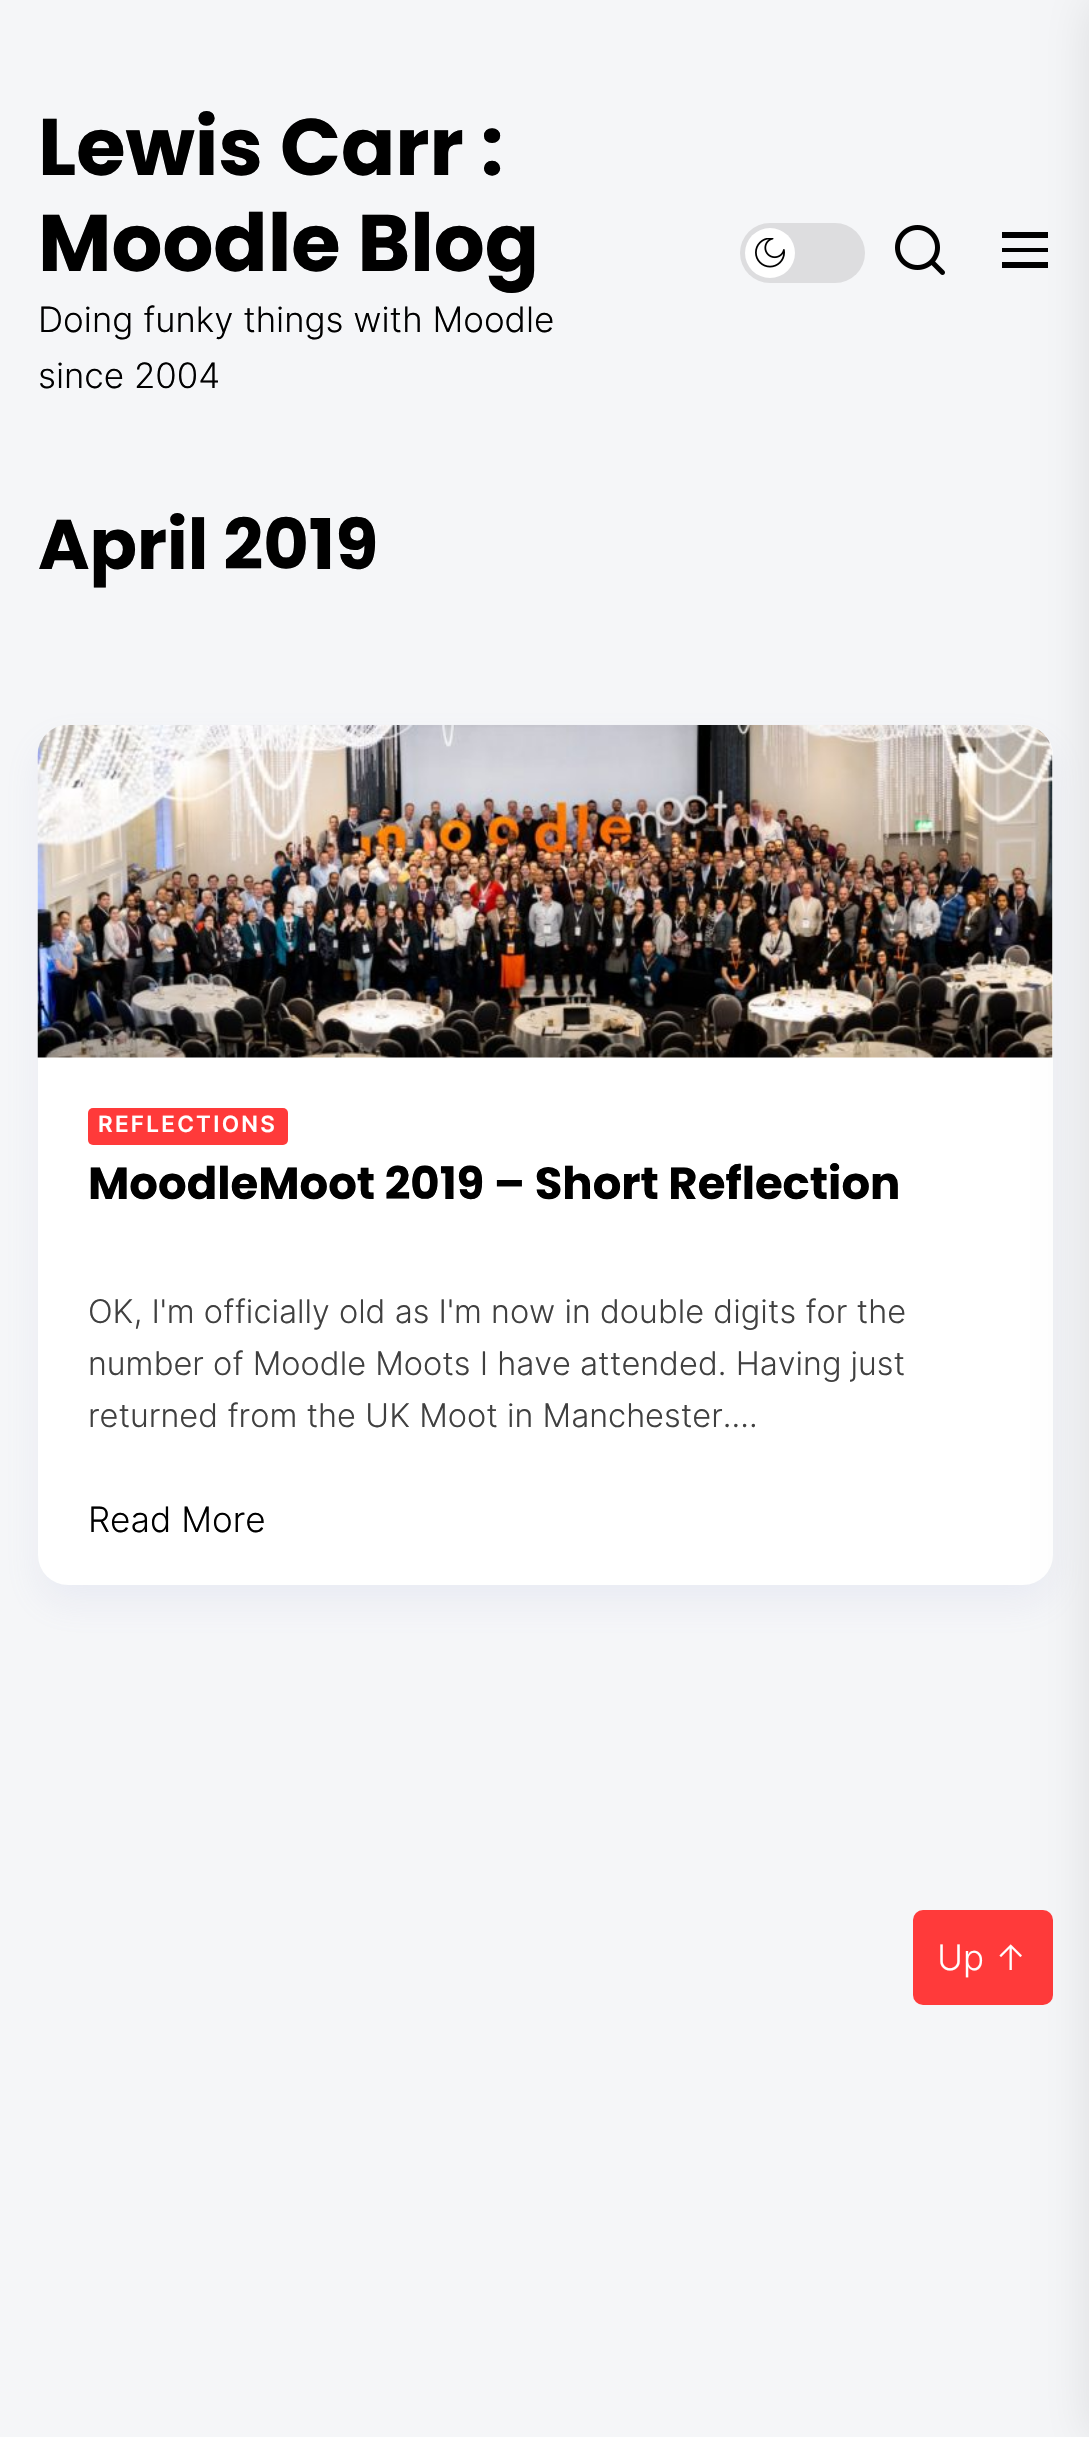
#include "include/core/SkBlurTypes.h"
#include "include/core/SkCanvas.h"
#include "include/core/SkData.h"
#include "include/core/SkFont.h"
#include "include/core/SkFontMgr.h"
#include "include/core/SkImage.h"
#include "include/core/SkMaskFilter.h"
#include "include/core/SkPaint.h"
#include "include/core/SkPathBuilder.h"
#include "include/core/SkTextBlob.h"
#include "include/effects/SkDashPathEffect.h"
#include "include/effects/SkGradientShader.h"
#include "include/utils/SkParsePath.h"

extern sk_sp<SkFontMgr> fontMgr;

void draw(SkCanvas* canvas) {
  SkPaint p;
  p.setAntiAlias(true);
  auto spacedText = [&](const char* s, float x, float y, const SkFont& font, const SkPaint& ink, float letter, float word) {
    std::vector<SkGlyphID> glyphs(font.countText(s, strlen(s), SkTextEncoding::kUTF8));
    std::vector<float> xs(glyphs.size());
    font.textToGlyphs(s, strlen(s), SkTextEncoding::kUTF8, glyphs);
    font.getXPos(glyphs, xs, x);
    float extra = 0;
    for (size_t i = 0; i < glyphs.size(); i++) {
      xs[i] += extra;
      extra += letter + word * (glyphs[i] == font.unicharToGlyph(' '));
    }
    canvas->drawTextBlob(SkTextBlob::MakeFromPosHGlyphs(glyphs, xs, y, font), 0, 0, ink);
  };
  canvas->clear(SkColorSetRGB(245, 246, 248));
  p.setColor(SkColorSetRGB(221, 221, 223));
  canvas->drawRoundRect(SkRect::MakeLTRB(740, 223, 865, 283), 30, 30, p);
  p.setColor(SK_ColorWHITE);
  canvas->drawCircle(770, 253, 25, p);
  canvas->drawImageRect(SkImages::DeferredFromEncodedData(SkData::MakeFromFileName("images/1.png")), SkRect::MakeLTRB(755, 238, 785, 268), SkSamplingOptions());
  canvas->drawImageRect(SkImages::DeferredFromEncodedData(SkData::MakeFromFileName("images/2.png")), SkRect::MakeLTRB(895, 225, 945, 275), SkSamplingOptions());
  p.setColor(SK_ColorBLACK);
  canvas->drawPath(SkPathBuilder().moveTo(1002, 232).lineTo(1002, 238).lineTo(1048, 238).lineTo(1048, 232).close().moveTo(1002, 252).lineTo(1048, 252).lineTo(1048, 248).lineTo(1002, 248).close().moveTo(1002, 268).lineTo(1048, 268).lineTo(1048, 262).lineTo(1002, 262).close().detach(), p);
  p.setColor(SkColorSetARGB(31, 151, 160, 204));
  p.setMaskFilter(SkMaskFilter::MakeBlur(kNormal_SkBlurStyle, 17.5f));
  canvas->drawRoundRect(SkRect::MakeLTRB(38, 743, 1053, 1603), 30, 30, p);
  p.setMaskFilter(nullptr);
  p.setColor(SK_ColorWHITE);
  canvas->drawRoundRect(SkRect::MakeLTRB(38, 725, 1053, 1585), 30, 30, p);
  canvas->drawImageRect(SkImages::DeferredFromEncodedData(SkData::MakeFromFileName("images/3.png")), SkRect::MakeLTRB(37, 725, 1053, 1058), SkSamplingOptions());
  p.setColor(SkColorSetRGB(255, 58, 58));
  canvas->drawRoundRect(SkRect::MakeLTRB(913, 1910, 1053, 2005), 10, 10, p);
  p.setColor(SkColorSetARGB(26, 0, 0, 0));
  p.setMaskFilter(SkMaskFilter::MakeBlur(kNormal_SkBlurStyle, 25));
  canvas->drawRect(SkRect::MakeLTRB(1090, 0, 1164, 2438), p);
  p.setMaskFilter(nullptr);
  p.setColor(SkColorSetRGB(255, 58, 58));
  canvas->drawRoundRect(SkRect::MakeLTRB(88, 1108, 288, 1145), 5, 5, p);
  SkFont font1(fontMgr->matchFamilyStyle("Poppins", SkFontStyle::Bold()), 80);
  font1.setSubpixel(true);
  p.setColor(SK_ColorBLACK);
  canvas->drawString("Lewis Carr :", 38, 175, font1, p);
  canvas->drawString("Moodle Blog", 38, 271, font1, p);
  SkFont font2(fontMgr->matchFamilyStyle("Inter", SkFontStyle(300, SkFontStyle::kNormal_Width, SkFontStyle::kUpright_Slant)), 35);
  font2.setSubpixel(true);
  canvas->drawString("Doing funky things with Moodle", 38, 332, font2, p);
  canvas->drawString("since 2004", 38, 388, font2, p);
  SkFont font3(fontMgr->matchFamilyStyle("Poppins", SkFontStyle::Bold()), 70);
  font3.setSubpixel(true);
  canvas->drawString("April 2019", 38, 569, font3, p);
  SkFont font4(fontMgr->matchFamilyStyle("Inter", SkFontStyle(600, SkFontStyle::kNormal_Width, SkFontStyle::kUpright_Slant)), 22.5f);
  font4.setSubpixel(true);
  p.setColor(SK_ColorWHITE);
  spacedText("REFLECTIONS", 98, 1132, font4, p, 2.25f, 0);
  SkFont font5(fontMgr->matchFamilyStyle("Poppins", SkFontStyle::Bold()), 45);
  font5.setSubpixel(true);
  p.setColor(SK_ColorBLACK);
  canvas->drawString("MoodleMoot 2019 – Short Reflection", 88, 1199, font5, p);
  SkFont font6(fontMgr->matchFamilyStyle("Inter", SkFontStyle(300, SkFontStyle::kNormal_Width, SkFontStyle::kUpright_Slant)), 32.5f);
  font6.setSubpixel(true);
  p.setColor(SkColorSetRGB(64, 64, 64));
  canvas->drawString("OK, I'm officially old as I'm now in double digits for the", 88, 1323, font6, p);
  canvas->drawString("number of Moodle Moots I have attended. Having just", 88, 1375, font6, p);
  canvas->drawString("returned from the UK Moot in Manchester....", 88, 1427, font6, p);
  p.setColor(SK_ColorBLACK);
  canvas->drawString("Read More", 88, 1532, font2, p);
  p.setColor(SK_ColorWHITE);
  canvas->drawString("Up ↑", 937, 1970, font2, p);
}
